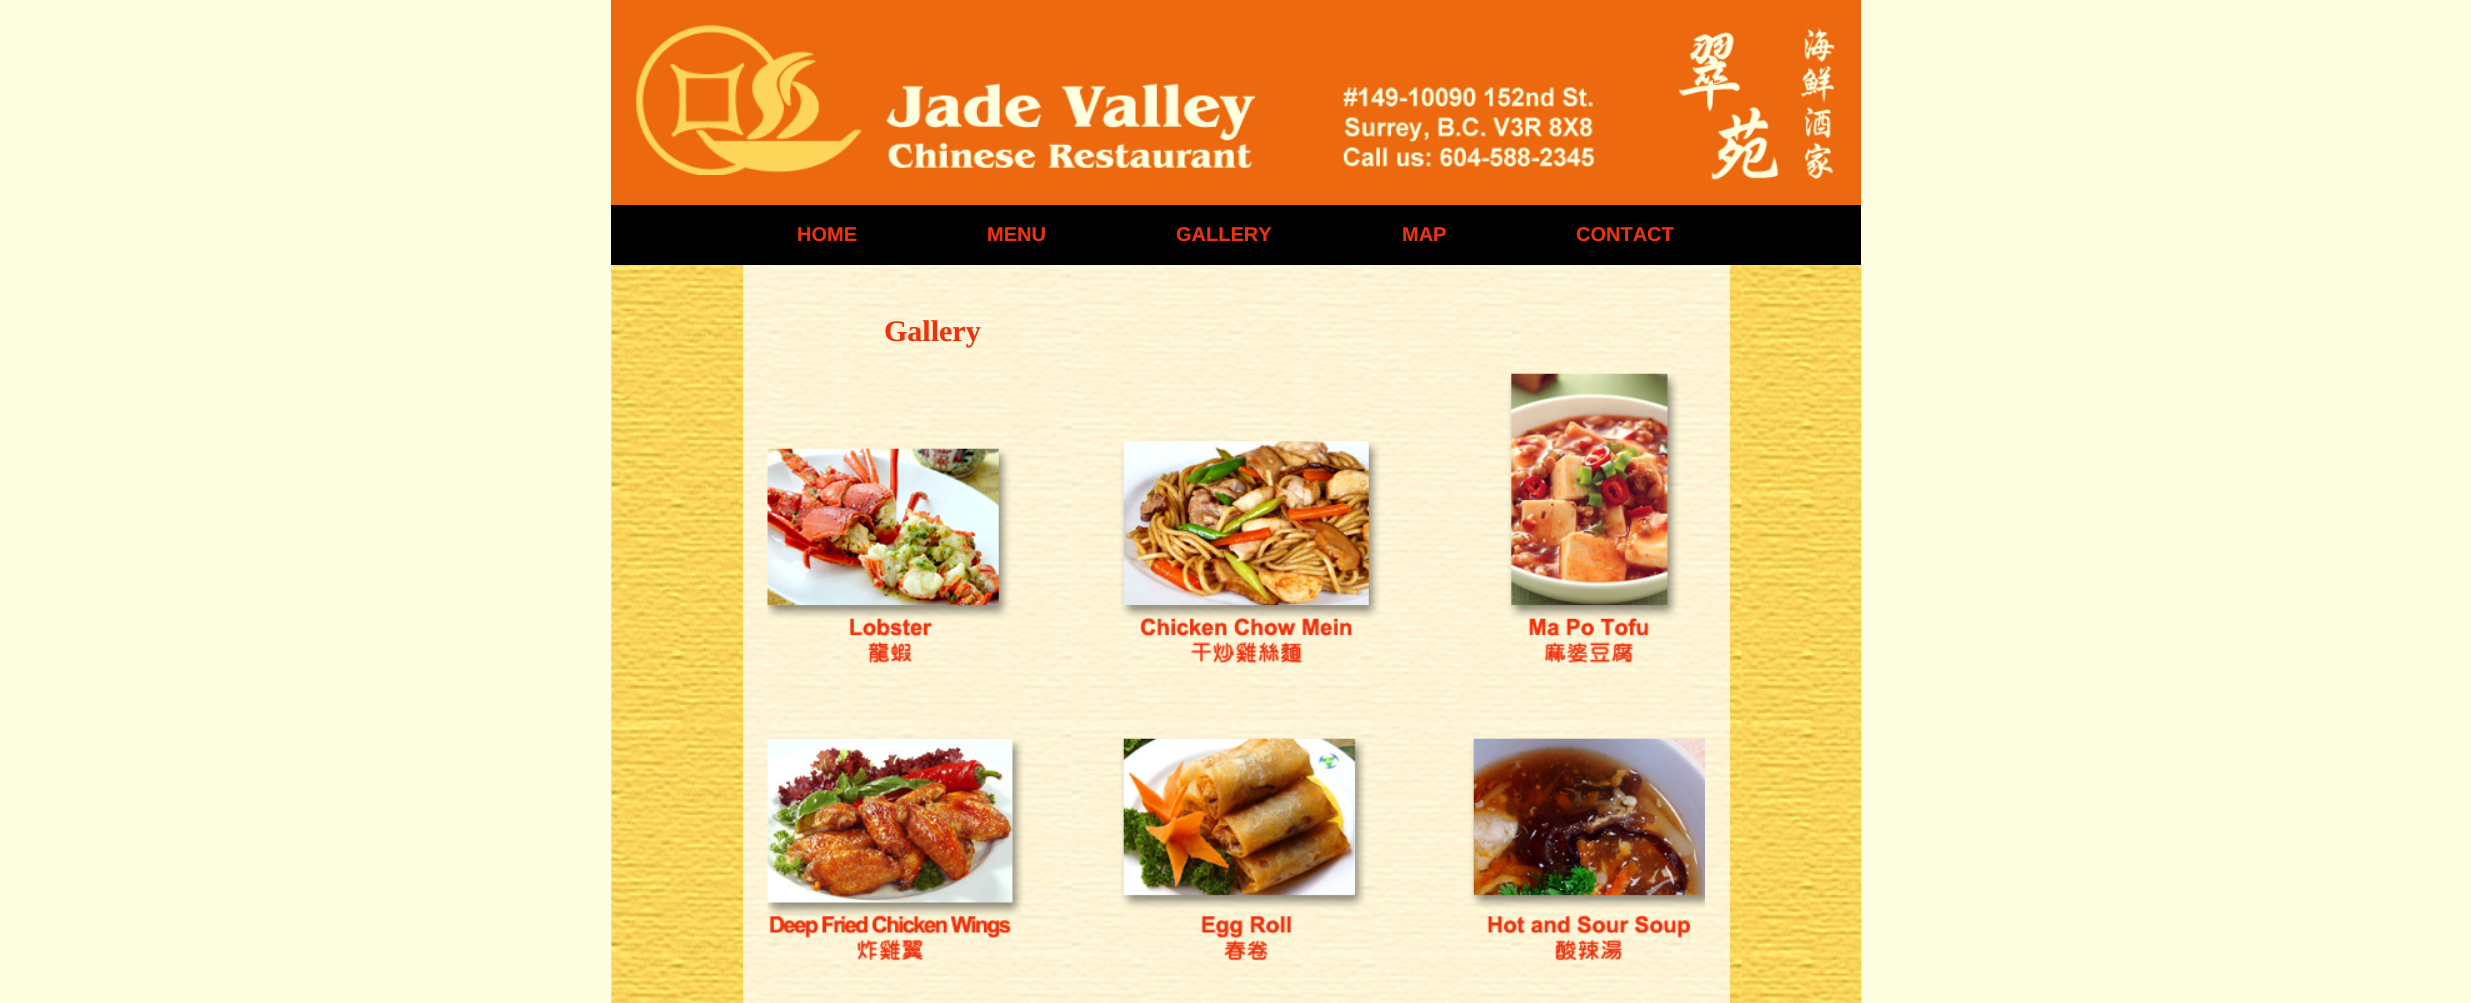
#include "include/core/SkBlurTypes.h"
#include "include/core/SkCanvas.h"
#include "include/core/SkData.h"
#include "include/core/SkFont.h"
#include "include/core/SkFontMgr.h"
#include "include/core/SkImage.h"
#include "include/core/SkMaskFilter.h"
#include "include/core/SkPaint.h"
#include "include/core/SkPathBuilder.h"
#include "include/core/SkTextBlob.h"
#include "include/effects/SkDashPathEffect.h"
#include "include/effects/SkGradientShader.h"
#include "include/utils/SkParsePath.h"

extern sk_sp<SkFontMgr> fontMgr;

void draw(SkCanvas* canvas) {
  SkPaint p;
  p.setAntiAlias(true);
  canvas->clear(SkColorSetRGB(252, 254, 223));
  p.setColor(SkColorSetRGB(237, 105, 15));
  canvas->drawRect(SkRect::MakeLTRB(611, 0, 1861, 205), p);
  canvas->drawImageRect(SkImages::DeferredFromEncodedData(SkData::MakeFromFileName("images/1.png")), SkRect::MakeLTRB(636, 25, 862, 175), SkSamplingOptions());
  canvas->drawImageRect(SkImages::DeferredFromEncodedData(SkData::MakeFromFileName("images/2.png")), SkRect::MakeLTRB(886, 83, 1255, 168), SkSamplingOptions());
  canvas->drawImageRect(SkImages::DeferredFromEncodedData(SkData::MakeFromFileName("images/3.png")), SkRect::MakeLTRB(1343, 87, 1594, 167), SkSamplingOptions());
  canvas->drawImageRect(SkImages::DeferredFromEncodedData(SkData::MakeFromFileName("images/4.png")), SkRect::MakeLTRB(1679, 27, 1835, 180), SkSamplingOptions());
  p.setColor(SK_ColorBLACK);
  canvas->drawRect(SkRect::MakeLTRB(611, 205, 1861, 265), p);
  canvas->drawImageRect(SkImages::DeferredFromEncodedData(SkData::MakeFromFileName("images/5.png")), SkRect::MakeLTRB(611, 265, 1862, 1003), SkSamplingOptions());
  p.setColor(SkColorSetARGB(191, 255, 255, 255));
  canvas->drawRect(SkRect::MakeLTRB(743, 265, 1730, 1003), p);
  canvas->drawImageRect(SkImages::DeferredFromEncodedData(SkData::MakeFromFileName("images/6.png")), SkRect::MakeLTRB(767, 373, 1705, 962), SkSamplingOptions());
  SkFont font1(fontMgr->matchFamilyStyle("Liberation Sans", SkFontStyle::Bold()), 20);
  font1.setSubpixel(true);
  p.setColor(SkColorSetRGB(239, 50, 12));
  canvas->drawString("HOME", 797, 241, font1, p);
  canvas->drawString("MENU", 987, 241, font1, p);
  canvas->drawString("GALLERY", 1176, 241, font1, p);
  canvas->drawString("MAP", 1402, 241, font1, p);
  canvas->drawString("CONTACT", 1576, 241, font1, p);
  SkFont font2(fontMgr->matchFamilyStyle("Liberation Serif", SkFontStyle::Bold()), 30);
  font2.setSubpixel(true);
  canvas->drawString("Gallery", 884, 341, font2, p);
}
